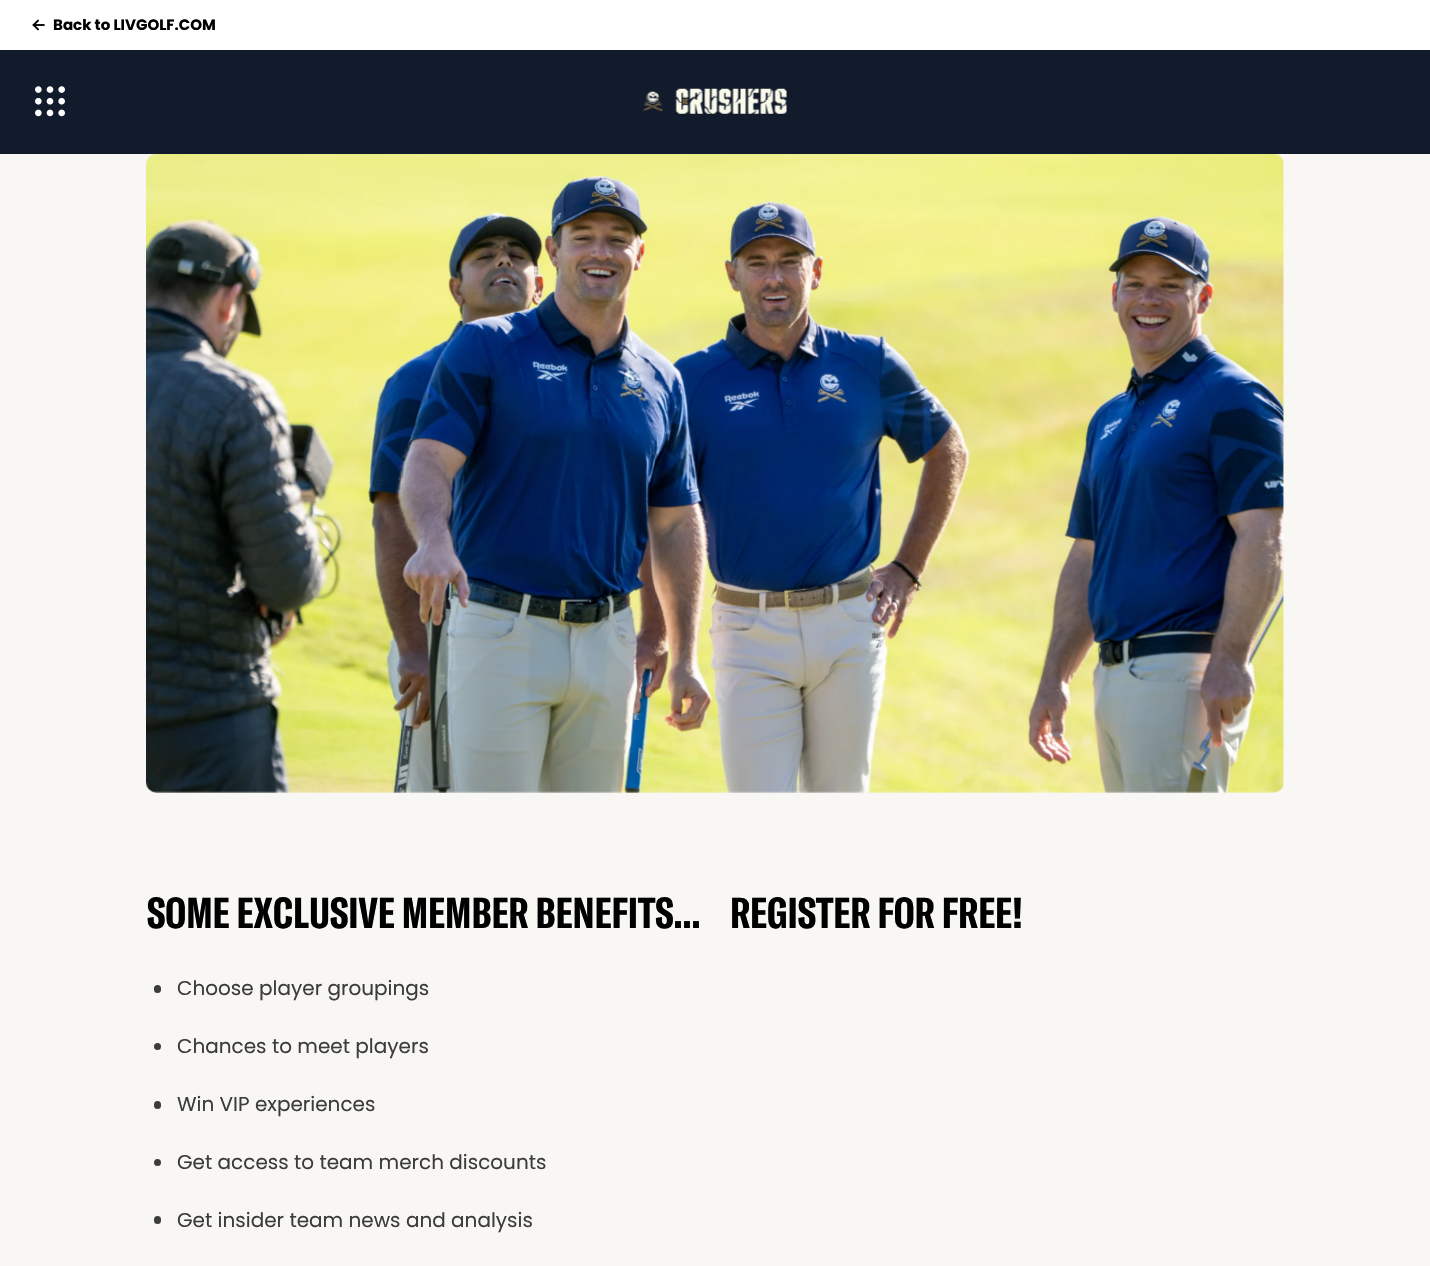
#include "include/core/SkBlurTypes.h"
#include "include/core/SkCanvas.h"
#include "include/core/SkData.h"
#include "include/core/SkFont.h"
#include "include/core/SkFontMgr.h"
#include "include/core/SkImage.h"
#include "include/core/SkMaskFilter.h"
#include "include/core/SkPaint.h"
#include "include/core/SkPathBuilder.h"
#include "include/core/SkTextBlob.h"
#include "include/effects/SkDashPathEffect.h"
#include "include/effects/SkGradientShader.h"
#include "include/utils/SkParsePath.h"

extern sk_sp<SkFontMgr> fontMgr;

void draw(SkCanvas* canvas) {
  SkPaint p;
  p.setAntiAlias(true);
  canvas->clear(SkColorSetRGB(248, 247, 243));
  p.setColor(SK_ColorWHITE);
  canvas->drawRect(SkRect::MakeLTRB(0, 0, 1430, 50), p);
  canvas->drawImageRect(SkImages::DeferredFromEncodedData(SkData::MakeFromFileName("images/1.png")), SkRect::MakeLTRB(32, 19, 45, 31), SkSamplingOptions());
  p.setColor(SkColorSetRGB(17, 27, 43));
  canvas->drawRect(SkRect::MakeLTRB(0, 50, 1430, 154), p);
  canvas->drawImageRect(SkImages::DeferredFromEncodedData(SkData::MakeFromFileName("images/2.png")), SkRect::MakeLTRB(35, 86, 65, 117), SkSamplingOptions());
  canvas->drawImageRect(SkImages::DeferredFromEncodedData(SkData::MakeFromFileName("images/3.png")), SkRect::MakeLTRB(643, 88, 787, 114), SkSamplingOptions());
  canvas->drawImageRect(SkImages::DeferredFromEncodedData(SkData::MakeFromFileName("images/4.png")), SkRect::MakeLTRB(146, 154, 1284, 793), SkSamplingOptions());
  p.setColor(SkColorSetRGB(60, 60, 60));
  canvas->drawRoundRect(SkRect::MakeLTRB(154, 985, 161, 993), 3.5f, 3.5f, p);
  canvas->drawCircle(157.5f, 1046.5f, 3.5f, p);
  canvas->drawRoundRect(SkRect::MakeLTRB(154, 1101, 161, 1109), 3.5f, 3.5f, p);
  canvas->drawCircle(157.5f, 1162.5f, 3.5f, p);
  canvas->drawRoundRect(SkRect::MakeLTRB(154, 1216, 161, 1224), 3.5f, 3.5f, p);
  SkFont font1(fontMgr->matchFamilyStyle("Poppins", SkFontStyle::Bold()), 15);
  font1.setSubpixel(true);
  p.setColor(SK_ColorBLACK);
  canvas->drawString("Back to LIVGOLF.COM", 53, 30, font1, p);
  SkFont font2(fontMgr->matchFamilyStyle("GT America", SkFontStyle::Bold()), 42.5f);
  font2.setSubpixel(true);
  canvas->drawString("SOME EXCLUSIVE MEMBER BENEFITS...", 147, 928, font2, p);
  SkFont font3(fontMgr->matchFamilyStyle("Poppins", SkFontStyle::Normal()), 20);
  font3.setSubpixel(true);
  p.setColor(SkColorSetRGB(60, 60, 60));
  canvas->drawString("Choose player groupings", 177, 995, font3, p);
  canvas->drawString("Chances to meet players", 177, 1053, font3, p);
  canvas->drawString("Win VIP experiences", 177, 1111, font3, p);
  canvas->drawString("Get access to team merch discounts", 177, 1169, font3, p);
  canvas->drawString("Get insider team news and analysis", 177, 1227, font3, p);
  p.setColor(SK_ColorBLACK);
  canvas->drawString("REGISTER FOR FREE!", 730, 928, font2, p);
}
